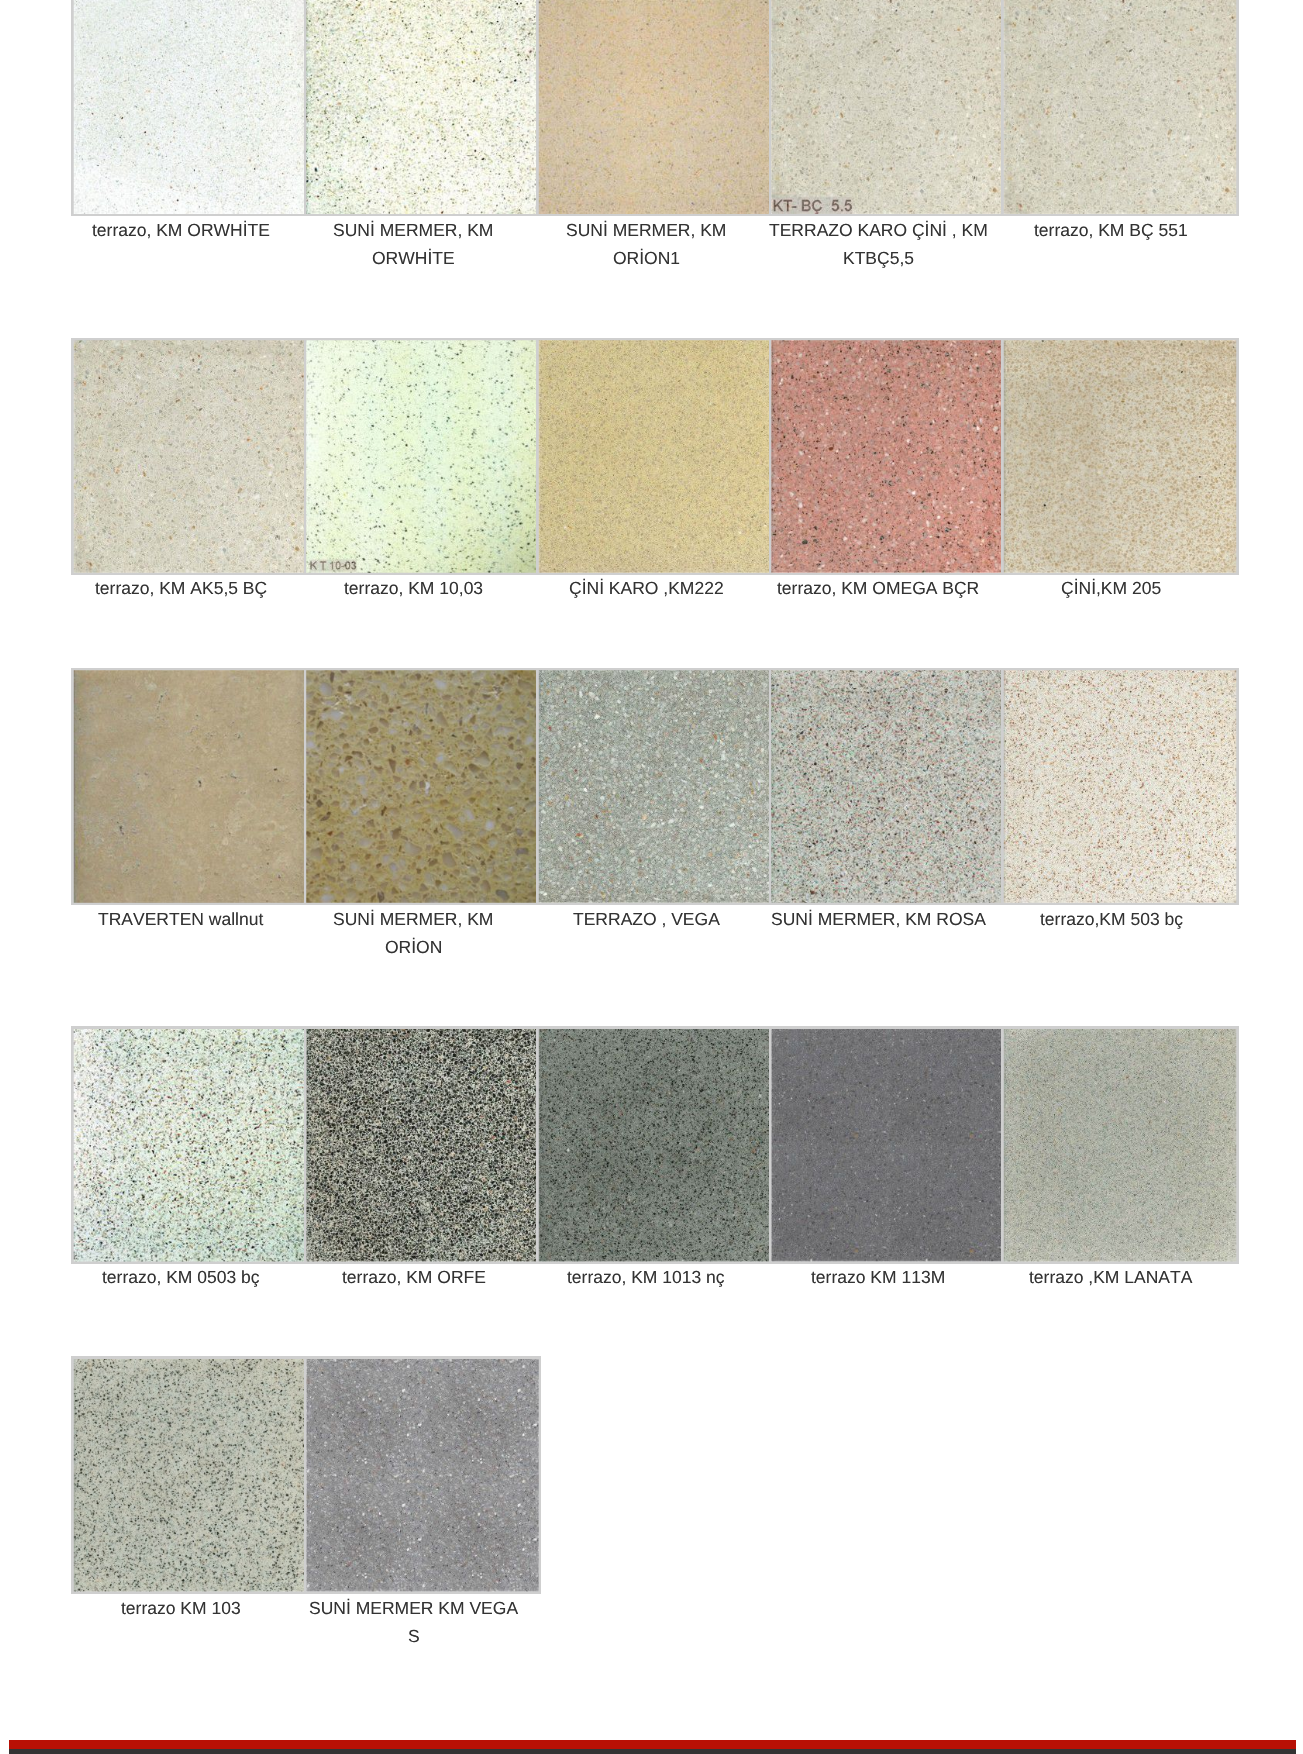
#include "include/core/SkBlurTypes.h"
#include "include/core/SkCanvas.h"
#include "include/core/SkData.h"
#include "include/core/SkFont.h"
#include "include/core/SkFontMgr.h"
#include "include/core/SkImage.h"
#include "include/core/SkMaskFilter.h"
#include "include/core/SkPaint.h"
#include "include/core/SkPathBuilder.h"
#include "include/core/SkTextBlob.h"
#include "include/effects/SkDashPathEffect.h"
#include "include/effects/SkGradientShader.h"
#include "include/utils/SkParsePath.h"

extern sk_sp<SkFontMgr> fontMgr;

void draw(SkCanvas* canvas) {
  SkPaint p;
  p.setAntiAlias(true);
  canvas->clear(SK_ColorWHITE);
  p.setStyle(SkPaint::kStroke_Style);
  p.setStrokeWidth(3);
  p.setColor(SkColorSetRGB(207, 207, 207));
  canvas->drawRect(SkRect::MakeLTRB(72.5f, -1.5f, 307.5f, 214.5f), p);
  canvas->drawImageRect(SkImages::DeferredFromEncodedData(SkData::MakeFromFileName("images/1.png")), SkRect::MakeLTRB(73, 0, 304, 214), SkSamplingOptions());
  canvas->drawRect(SkRect::MakeLTRB(305.5f, -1.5f, 539.5f, 214.5f), p);
  canvas->drawImageRect(SkImages::DeferredFromEncodedData(SkData::MakeFromFileName("images/2.png")), SkRect::MakeLTRB(306, 0, 536, 214), SkSamplingOptions());
  canvas->drawRect(SkRect::MakeLTRB(537.5f, -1.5f, 772.5f, 214.5f), p);
  canvas->drawImageRect(SkImages::DeferredFromEncodedData(SkData::MakeFromFileName("images/3.png")), SkRect::MakeLTRB(538, 0, 769, 214), SkSamplingOptions());
  canvas->drawRect(SkRect::MakeLTRB(770.5f, -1.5f, 1004.5f, 214.5f), p);
  canvas->drawImageRect(SkImages::DeferredFromEncodedData(SkData::MakeFromFileName("images/4.png")), SkRect::MakeLTRB(771, 0, 1001, 214), SkSamplingOptions());
  canvas->drawRect(SkRect::MakeLTRB(1002.5f, -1.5f, 1237.5f, 214.5f), p);
  canvas->drawImageRect(SkImages::DeferredFromEncodedData(SkData::MakeFromFileName("images/5.png")), SkRect::MakeLTRB(1003, 0, 1237, 214), SkSamplingOptions());
  canvas->drawRect(SkRect::MakeLTRB(72.5f, 339.5f, 307.5f, 573.5f), p);
  canvas->drawImageRect(SkImages::DeferredFromEncodedData(SkData::MakeFromFileName("images/6.png")), SkRect::MakeLTRB(73, 340, 304, 573), SkSamplingOptions());
  canvas->drawRect(SkRect::MakeLTRB(305.5f, 339.5f, 539.5f, 573.5f), p);
  canvas->drawImageRect(SkImages::DeferredFromEncodedData(SkData::MakeFromFileName("images/7.png")), SkRect::MakeLTRB(306, 340, 536, 573), SkSamplingOptions());
  canvas->drawRect(SkRect::MakeLTRB(537.5f, 339.5f, 772.5f, 573.5f), p);
  canvas->drawImageRect(SkImages::DeferredFromEncodedData(SkData::MakeFromFileName("images/8.png")), SkRect::MakeLTRB(538, 340, 769, 573), SkSamplingOptions());
  canvas->drawRect(SkRect::MakeLTRB(770.5f, 339.5f, 1004.5f, 573.5f), p);
  canvas->drawImageRect(SkImages::DeferredFromEncodedData(SkData::MakeFromFileName("images/9.png")), SkRect::MakeLTRB(771, 340, 1001, 573), SkSamplingOptions());
  canvas->drawRect(SkRect::MakeLTRB(1002.5f, 339.5f, 1237.5f, 573.5f), p);
  canvas->drawImageRect(SkImages::DeferredFromEncodedData(SkData::MakeFromFileName("images/10.png")), SkRect::MakeLTRB(1003, 340, 1237, 573), SkSamplingOptions());
  canvas->drawRect(SkRect::MakeLTRB(72.5f, 669.5f, 307.5f, 903.5f), p);
  canvas->drawImageRect(SkImages::DeferredFromEncodedData(SkData::MakeFromFileName("images/11.png")), SkRect::MakeLTRB(73, 670, 304, 903), SkSamplingOptions());
  canvas->drawRect(SkRect::MakeLTRB(305.5f, 669.5f, 539.5f, 903.5f), p);
  canvas->drawImageRect(SkImages::DeferredFromEncodedData(SkData::MakeFromFileName("images/12.png")), SkRect::MakeLTRB(306, 670, 536, 903), SkSamplingOptions());
  canvas->drawRect(SkRect::MakeLTRB(537.5f, 669.5f, 772.5f, 903.5f), p);
  canvas->drawImageRect(SkImages::DeferredFromEncodedData(SkData::MakeFromFileName("images/13.png")), SkRect::MakeLTRB(538, 670, 769, 903), SkSamplingOptions());
  canvas->drawRect(SkRect::MakeLTRB(770.5f, 669.5f, 1004.5f, 903.5f), p);
  canvas->drawImageRect(SkImages::DeferredFromEncodedData(SkData::MakeFromFileName("images/14.png")), SkRect::MakeLTRB(771, 670, 1001, 903), SkSamplingOptions());
  canvas->drawRect(SkRect::MakeLTRB(1002.5f, 669.5f, 1237.5f, 903.5f), p);
  canvas->drawImageRect(SkImages::DeferredFromEncodedData(SkData::MakeFromFileName("images/15.png")), SkRect::MakeLTRB(1003, 670, 1237, 903), SkSamplingOptions());
  canvas->drawRect(SkRect::MakeLTRB(72.5f, 1027.5f, 307.5f, 1262.5f), p);
  canvas->drawImageRect(SkImages::DeferredFromEncodedData(SkData::MakeFromFileName("images/16.png")), SkRect::MakeLTRB(73, 1029, 304, 1262), SkSamplingOptions());
  canvas->drawRect(SkRect::MakeLTRB(305.5f, 1027.5f, 539.5f, 1262.5f), p);
  canvas->drawImageRect(SkImages::DeferredFromEncodedData(SkData::MakeFromFileName("images/17.png")), SkRect::MakeLTRB(306, 1029, 536, 1262), SkSamplingOptions());
  canvas->drawRect(SkRect::MakeLTRB(537.5f, 1027.5f, 772.5f, 1262.5f), p);
  canvas->drawImageRect(SkImages::DeferredFromEncodedData(SkData::MakeFromFileName("images/18.png")), SkRect::MakeLTRB(538, 1029, 769, 1262), SkSamplingOptions());
  canvas->drawRect(SkRect::MakeLTRB(770.5f, 1027.5f, 1004.5f, 1262.5f), p);
  canvas->drawImageRect(SkImages::DeferredFromEncodedData(SkData::MakeFromFileName("images/19.png")), SkRect::MakeLTRB(771, 1029, 1001, 1262), SkSamplingOptions());
  canvas->drawRect(SkRect::MakeLTRB(1002.5f, 1027.5f, 1237.5f, 1262.5f), p);
  canvas->drawImageRect(SkImages::DeferredFromEncodedData(SkData::MakeFromFileName("images/20.png")), SkRect::MakeLTRB(1003, 1029, 1237, 1262), SkSamplingOptions());
  canvas->drawRect(SkRect::MakeLTRB(72.5f, 1357.5f, 307.5f, 1592.5f), p);
  canvas->drawImageRect(SkImages::DeferredFromEncodedData(SkData::MakeFromFileName("images/21.png")), SkRect::MakeLTRB(73, 1359, 304, 1592), SkSamplingOptions());
  canvas->drawRect(SkRect::MakeLTRB(305.5f, 1357.5f, 539.5f, 1592.5f), p);
  canvas->drawImageRect(SkImages::DeferredFromEncodedData(SkData::MakeFromFileName("images/22.png")), SkRect::MakeLTRB(306, 1359, 539, 1592), SkSamplingOptions());
  p.setStyle(SkPaint::kFill_Style);
  p.setColor(SkColorSetRGB(51, 51, 51));
  canvas->drawRect(SkRect::MakeLTRB(9, 1749, 1296, 1754), p);
  p.setColor(SkColorSetRGB(184, 16, 5));
  canvas->drawRect(SkRect::MakeLTRB(9, 1740, 1296, 1749), p);
  SkFont font1(fontMgr->matchFamilyStyle("Liberation Sans", SkFontStyle::Normal()), 17.5f);
  font1.setSubpixel(true);
  p.setColor(SkColorSetRGB(51, 51, 51));
  canvas->drawString("terrazo, KM ORWHİTE", 92, 236, font1, p);
  canvas->drawString("SUNİ MERMER, KM", 333, 236, font1, p);
  canvas->drawString("ORWHİTE", 372, 264, font1, p);
  canvas->drawString("SUNİ MERMER, KM", 566, 236, font1, p);
  canvas->drawString("ORİON1", 613, 264, font1, p);
  canvas->drawString("TERRAZO KARO ÇİNİ , KM", 769, 236, font1, p);
  canvas->drawString("KTBÇ5,5", 843, 264, font1, p);
  canvas->drawString("terrazo, KM BÇ 551", 1034, 236, font1, p);
  canvas->drawString("terrazo, KM AK5,5 BÇ", 95, 594, font1, p);
  canvas->drawString("terrazo, KM 10,03", 344, 594, font1, p);
  canvas->drawString("ÇİNİ KARO ,KM222", 569, 594, font1, p);
  canvas->drawString("terrazo, KM OMEGA BÇR", 777, 594, font1, p);
  canvas->drawString("ÇİNİ,KM 205", 1061, 594, font1, p);
  canvas->drawString("TRAVERTEN wallnut", 98, 925, font1, p);
  canvas->drawString("SUNİ MERMER, KM", 333, 925, font1, p);
  canvas->drawString("ORİON", 385, 953, font1, p);
  canvas->drawString("TERRAZO , VEGA", 573, 925, font1, p);
  canvas->drawString("SUNİ MERMER, KM ROSA", 771, 925, font1, p);
  canvas->drawString("terrazo,KM 503 bç", 1040, 925, font1, p);
  canvas->drawString("terrazo, KM 0503 bç", 102, 1283, font1, p);
  canvas->drawString("terrazo, KM ORFE", 342, 1283, font1, p);
  canvas->drawString("terrazo, KM 1013 nç", 567, 1283, font1, p);
  canvas->drawString("terrazo KM 113M", 811, 1283, font1, p);
  canvas->drawString("terrazo ,KM LANATA", 1029, 1283, font1, p);
  canvas->drawString("terrazo KM 103", 121, 1614, font1, p);
  canvas->drawString("SUNİ MERMER KM VEGA", 309, 1614, font1, p);
  canvas->drawString("S", 408, 1642, font1, p);
}
